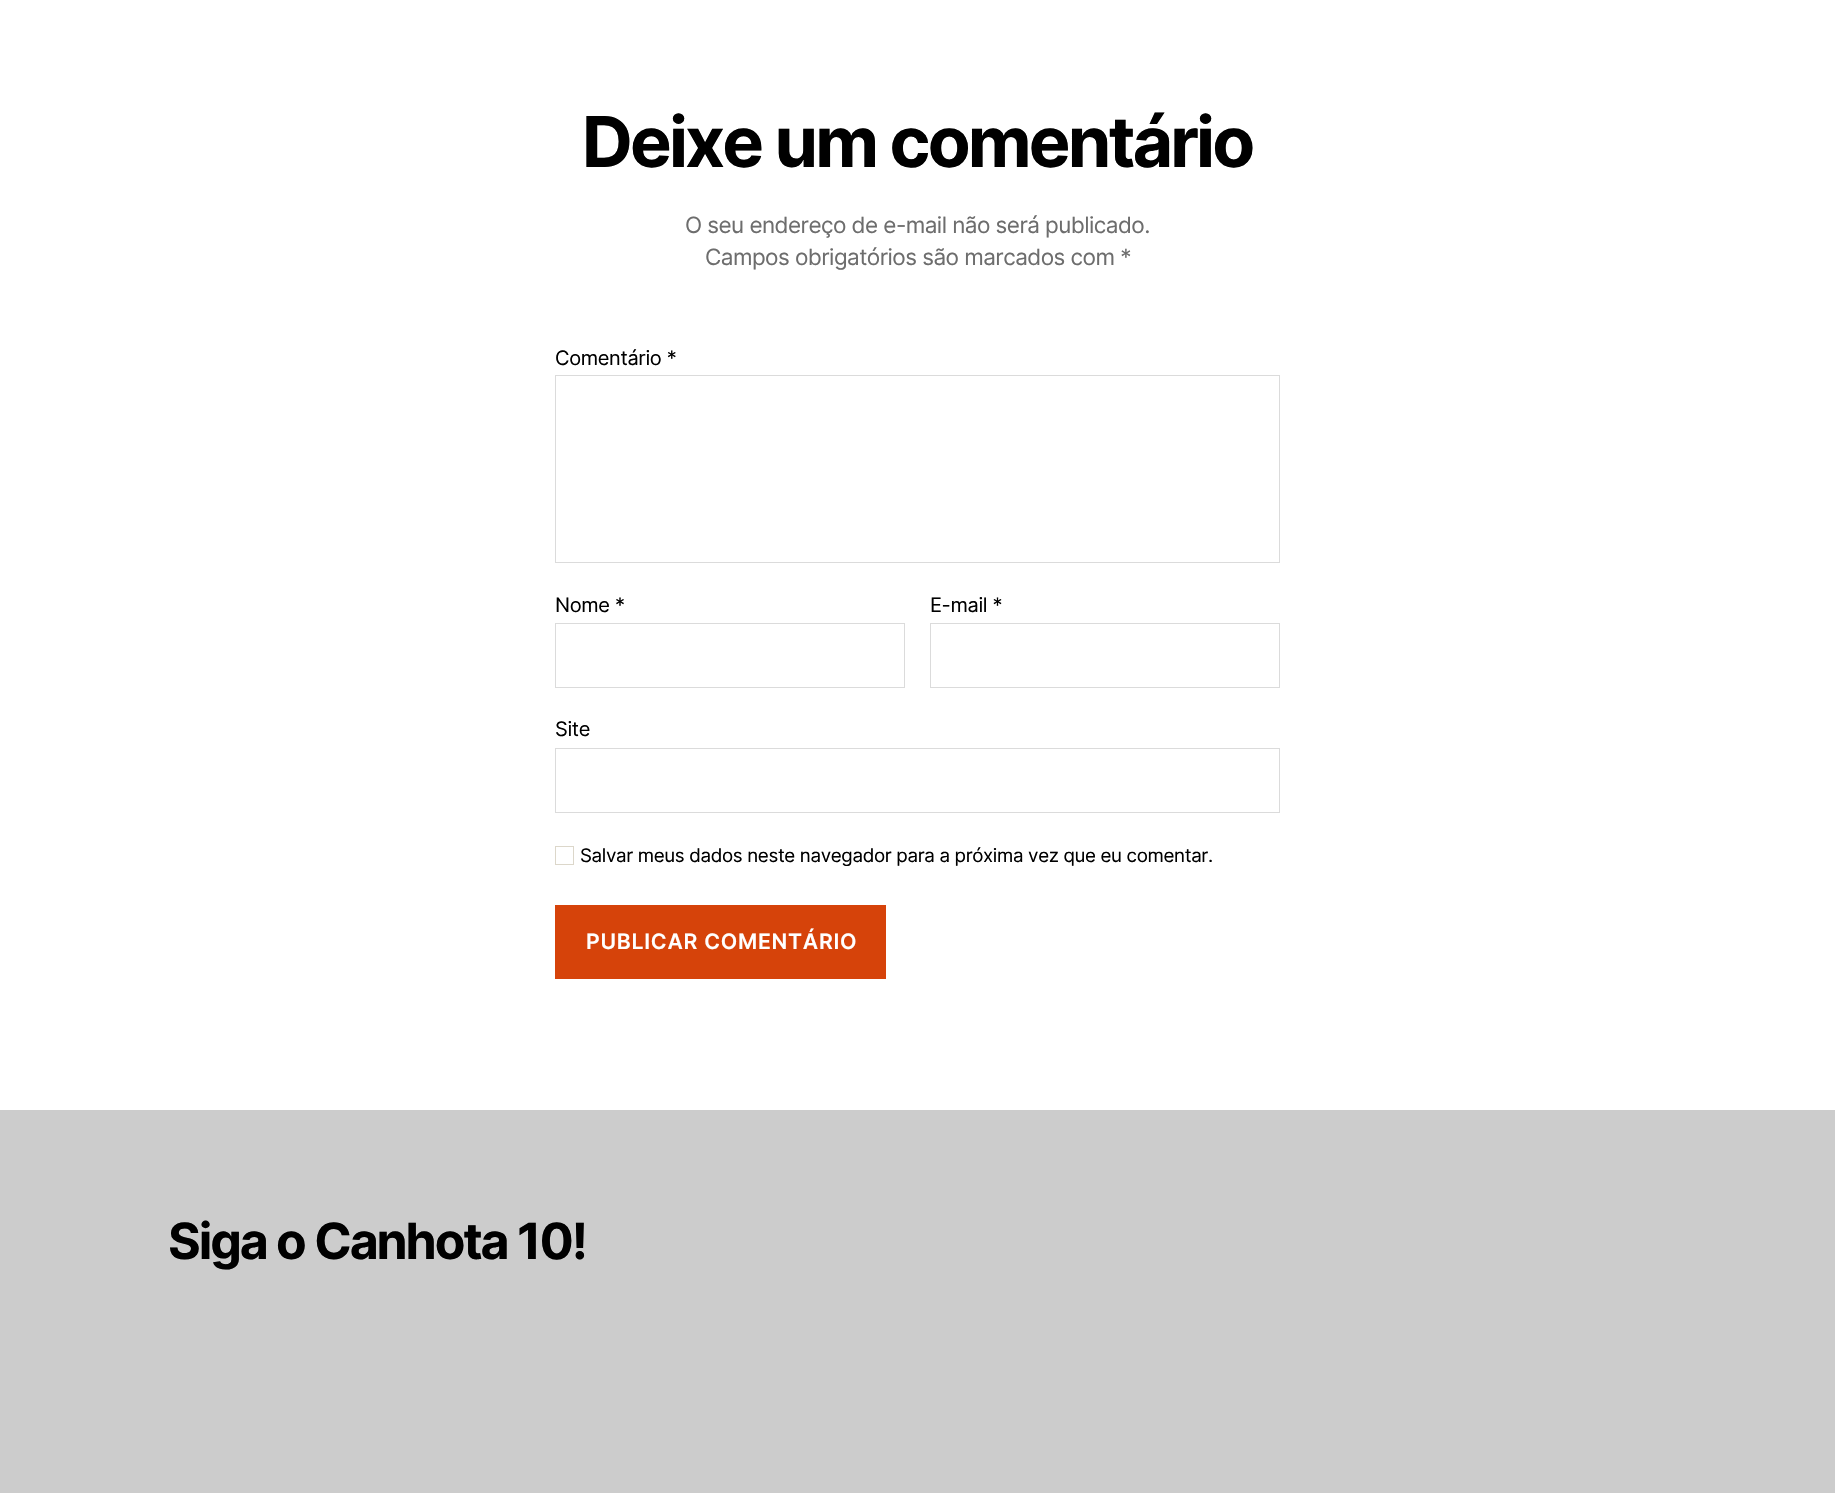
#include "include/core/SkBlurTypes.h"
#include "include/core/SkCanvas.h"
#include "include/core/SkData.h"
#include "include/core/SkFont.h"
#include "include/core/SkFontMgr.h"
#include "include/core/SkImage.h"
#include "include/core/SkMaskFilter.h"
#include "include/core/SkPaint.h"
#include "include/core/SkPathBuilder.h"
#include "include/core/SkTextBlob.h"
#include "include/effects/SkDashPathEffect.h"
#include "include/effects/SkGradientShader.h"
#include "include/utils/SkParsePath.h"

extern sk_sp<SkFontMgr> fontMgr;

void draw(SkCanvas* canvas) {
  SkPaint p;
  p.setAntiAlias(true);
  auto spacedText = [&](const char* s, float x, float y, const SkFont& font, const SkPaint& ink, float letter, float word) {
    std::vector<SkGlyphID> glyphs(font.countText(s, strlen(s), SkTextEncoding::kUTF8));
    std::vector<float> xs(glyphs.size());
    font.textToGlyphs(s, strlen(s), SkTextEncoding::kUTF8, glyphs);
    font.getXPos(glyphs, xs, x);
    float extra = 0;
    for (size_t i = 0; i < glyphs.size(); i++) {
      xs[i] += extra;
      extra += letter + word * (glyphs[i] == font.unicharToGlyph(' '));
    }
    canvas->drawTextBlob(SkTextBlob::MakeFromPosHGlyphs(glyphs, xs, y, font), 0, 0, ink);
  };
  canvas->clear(SK_ColorWHITE);
  p.setStyle(SkPaint::kStroke_Style);
  p.setStrokeWidth(1);
  p.setColor(SkColorSetRGB(219, 219, 219));
  canvas->drawRect(SkRect::MakeLTRB(555.5f, 375.5f, 1279.5f, 562.5f), p);
  canvas->drawRect(SkRect::MakeLTRB(555.5f, 623.5f, 904.5f, 687.5f), p);
  canvas->drawRect(SkRect::MakeLTRB(930.5f, 623.5f, 1279.5f, 687.5f), p);
  canvas->drawRect(SkRect::MakeLTRB(555.5f, 748.5f, 1279.5f, 812.5f), p);
  p.setColor(SkColorSetRGB(220, 215, 202));
  canvas->drawRect(SkRect::MakeLTRB(555.5f, 846.5f, 573.5f, 864.5f), p);
  p.setStyle(SkPaint::kFill_Style);
  p.setColor(SkColorSetRGB(214, 67, 10));
  canvas->drawRect(SkRect::MakeLTRB(555, 905, 886, 979), p);
  p.setColor(SkColorSetRGB(204, 204, 204));
  canvas->drawRect(SkRect::MakeLTRB(0, 1110, 1835, 1493), p);
  SkFont font1(fontMgr->matchFamilyStyle("Inter", SkFontStyle::Bold()), 70);
  font1.setSubpixel(true);
  p.setColor(SK_ColorBLACK);
  spacedText("Deixe um comentário", 582, 167, font1, p, -2.9f, 0);
  SkFont font2(fontMgr->matchFamilyStyle("Inter", SkFontStyle::Normal()), 22.5f);
  font2.setSubpixel(true);
  p.setColor(SkColorSetRGB(109, 109, 109));
  spacedText("O seu endereço de e-mail não será publicado.", 685, 233, font2, p, -0.55f, 0);
  spacedText("Campos obrigatórios são marcados com *", 705, 265, font2, p, -0.55f, 0);
  SkFont font3(fontMgr->matchFamilyStyle("Inter", SkFontStyle::Normal()), 20);
  font3.setSubpixel(true);
  p.setColor(SK_ColorBLACK);
  spacedText("Comentário *", 555, 365, font3, p, -0.35f, 0);
  spacedText("Nome *", 555, 612, font3, p, -0.35f, 0);
  spacedText("E-mail *", 930, 612, font3, p, -0.35f, 0);
  spacedText("Site", 555, 736, font3, p, -0.35f, 0);
  SkFont font4(fontMgr->matchFamilyStyle("Inter", SkFontStyle::Normal()), 18.75f);
  font4.setSubpixel(true);
  spacedText("Salvar meus dados neste navegador para a próxima vez que eu comentar.", 580, 862, font4, p, -0.35f, 0);
  SkFont font5(fontMgr->matchFamilyStyle("Inter", SkFontStyle(600, SkFontStyle::kNormal_Width, SkFontStyle::kUpright_Slant)), 21.25f);
  font5.setSubpixel(true);
  p.setColor(SK_ColorWHITE);
  spacedText("PUBLICAR COMENTÁRIO", 586, 949, font5, p, 0.75f, 0);
  SkFont font6(fontMgr->matchFamilyStyle("Inter", SkFontStyle::Bold()), 50);
  font6.setSubpixel(true);
  p.setColor(SK_ColorBLACK);
  spacedText("Siga o Canhota 10!", 168, 1259, font6, p, -2.1f, 0);
}
